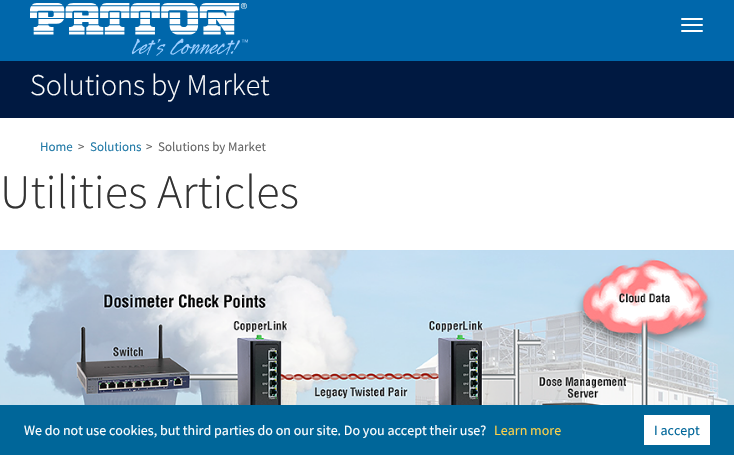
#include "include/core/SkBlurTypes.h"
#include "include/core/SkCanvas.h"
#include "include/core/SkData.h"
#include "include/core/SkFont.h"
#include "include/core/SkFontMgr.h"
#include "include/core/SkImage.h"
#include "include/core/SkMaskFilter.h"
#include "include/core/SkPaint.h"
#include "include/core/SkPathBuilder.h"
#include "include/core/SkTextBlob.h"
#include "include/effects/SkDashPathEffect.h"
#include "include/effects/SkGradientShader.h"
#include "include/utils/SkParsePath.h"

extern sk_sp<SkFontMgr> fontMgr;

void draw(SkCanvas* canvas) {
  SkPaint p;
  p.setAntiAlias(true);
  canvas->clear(SK_ColorWHITE);
  p.setColor(SkColorSetRGB(0, 103, 171));
  canvas->drawRect(SkRect::MakeLTRB(0, 0, 734, 61), p);
  canvas->drawImageRect(SkImages::DeferredFromEncodedData(SkData::MakeFromFileName("images/1.png")), SkRect::MakeLTRB(30, 3, 248, 56), SkSamplingOptions());
  p.setColor(SK_ColorWHITE);
  canvas->drawRoundRect(SkRect::MakeLTRB(681, 18, 703, 20), 1, 1, p);
  canvas->drawRoundRect(SkRect::MakeLTRB(681, 24, 703, 26), 1, 1, p);
  canvas->drawRoundRect(SkRect::MakeLTRB(681, 30, 703, 32), 1, 1, p);
  p.setColor(SkColorSetRGB(0, 25, 65));
  canvas->drawRect(SkRect::MakeLTRB(0, 61, 734, 118), p);
  canvas->drawImageRect(SkImages::DeferredFromEncodedData(SkData::MakeFromFileName("images/2.png")), SkRect::MakeLTRB(0, 250, 734, 405), SkSamplingOptions());
  p.setColor(SkColorSetRGB(0, 102, 153));
  canvas->drawRect(SkRect::MakeLTRB(0, 405, 734, 455), p);
  p.setColor(SK_ColorWHITE);
  canvas->drawRect(SkRect::MakeLTRB(644, 415, 710, 445), p);
  SkFont font1(fontMgr->matchFamilyStyle("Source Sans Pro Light", SkFontStyle(300, SkFontStyle::kNormal_Width, SkFontStyle::kUpright_Slant)), 30);
  font1.setSubpixel(true);
  canvas->drawString("Solutions by Market", 30, 95, font1, p);
  SkFont font2(fontMgr->matchFamilyStyle("Source Sans Pro", SkFontStyle::Normal()), 13);
  font2.setSubpixel(true);
  p.setColor(SkColorSetRGB(34, 122, 167));
  canvas->drawString("Home", 40, 151, font2, p);
  p.setColor(SkColorSetRGB(102, 102, 102));
  canvas->drawString(">", 78, 151, font2, p);
  p.setColor(SkColorSetRGB(34, 122, 167));
  canvas->drawString("Solutions", 90, 151, font2, p);
  p.setColor(SkColorSetRGB(102, 102, 102));
  canvas->drawString(">", 146, 151, font2, p);
  canvas->drawString("Solutions by Market", 158, 151, font2, p);
  SkFont font3(fontMgr->matchFamilyStyle("Source Sans Pro Light", SkFontStyle(300, SkFontStyle::kNormal_Width, SkFontStyle::kUpright_Slant)), 48);
  font3.setSubpixel(true);
  p.setColor(SkColorSetRGB(51, 51, 51));
  canvas->drawString("Utilities Articles", 0, 208, font3, p);
  SkFont font4(fontMgr->matchFamilyStyle("Source Sans Pro", SkFontStyle::Normal()), 14);
  font4.setSubpixel(true);
  p.setColor(SK_ColorWHITE);
  canvas->drawString("We do not use cookies, but third parties do on our site. Do you accept their use?", 24, 435, font4, p);
  p.setColor(SkColorSetRGB(250, 208, 76));
  canvas->drawString("Learn more", 494, 435, font4, p);
  p.setColor(SkColorSetRGB(0, 102, 153));
  canvas->drawString("I accept", 654, 435, font4, p);
}
